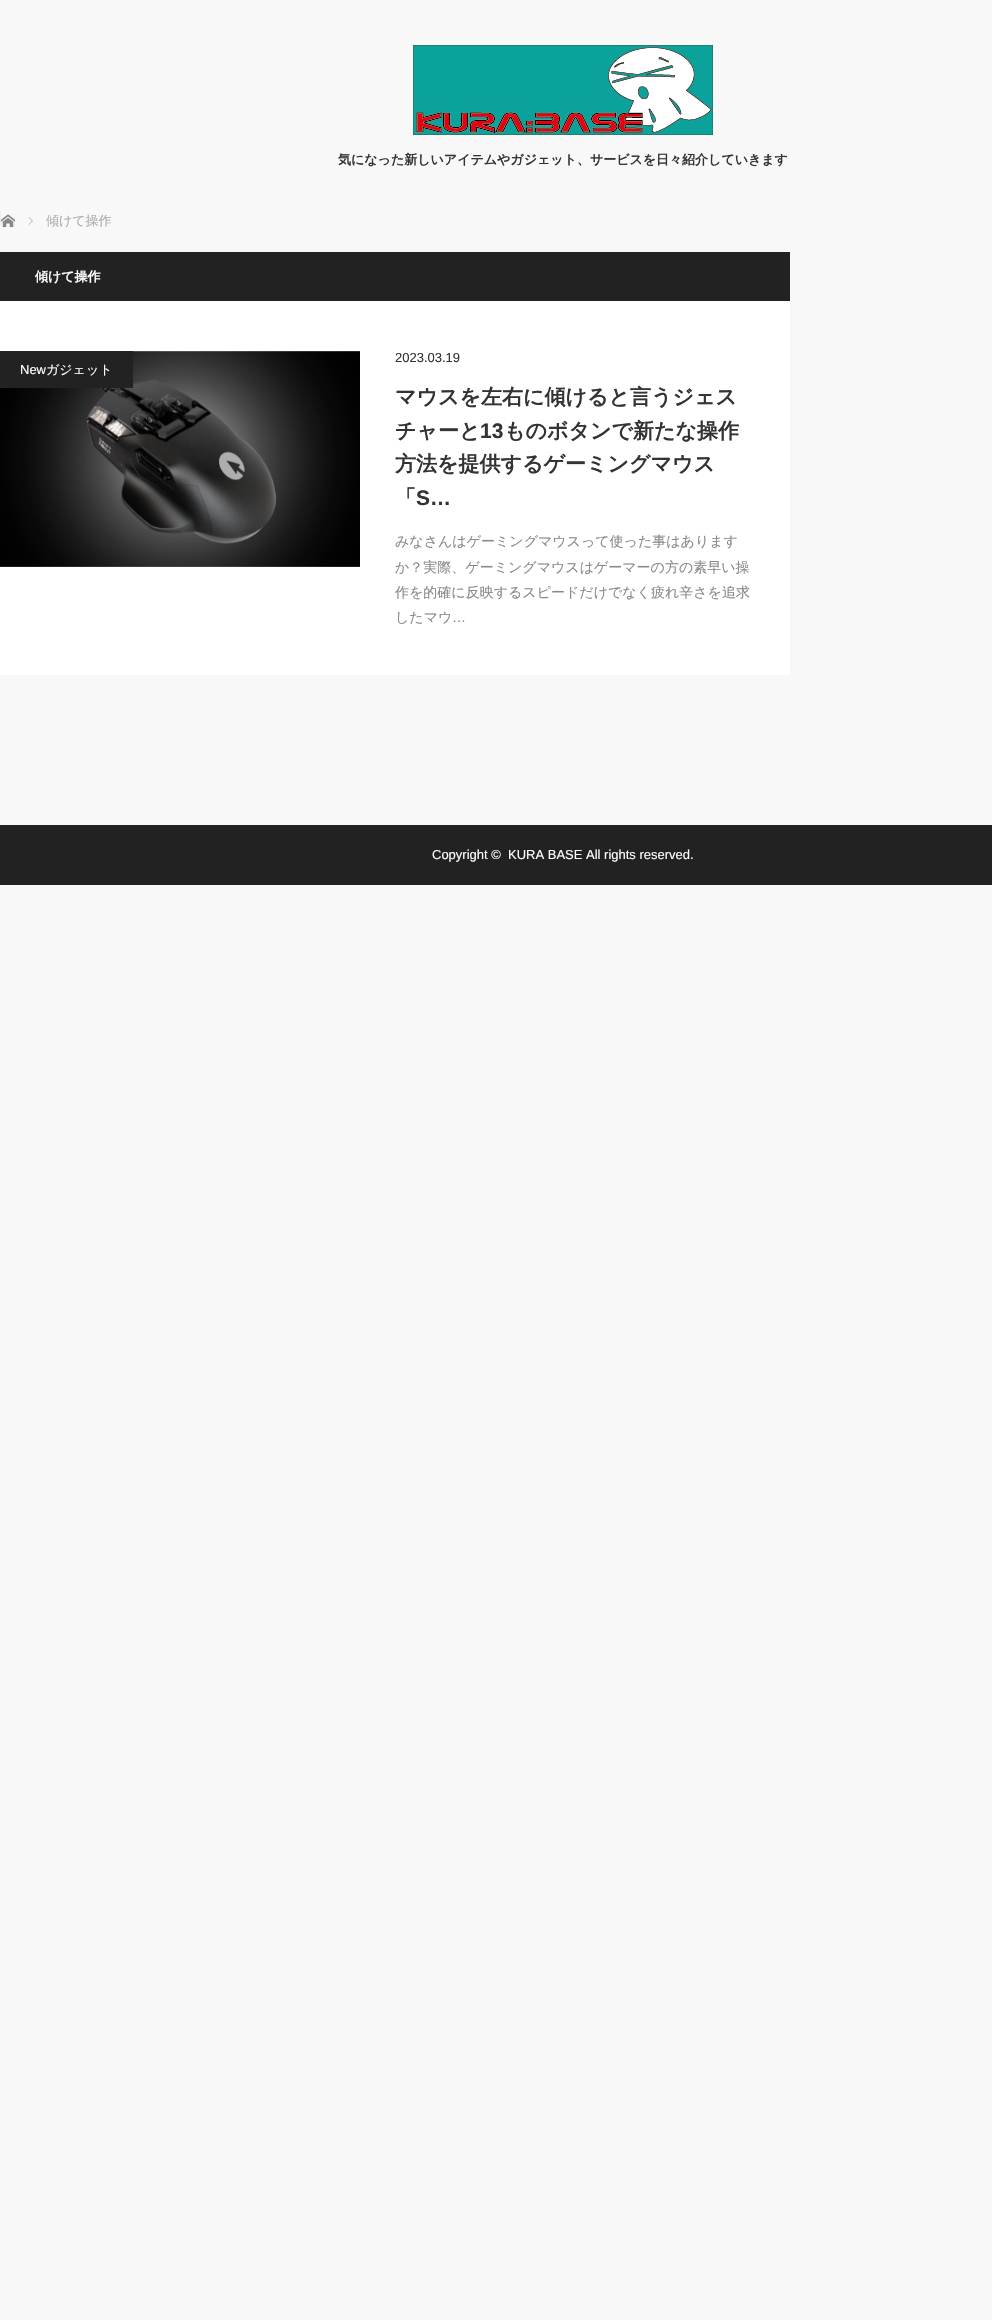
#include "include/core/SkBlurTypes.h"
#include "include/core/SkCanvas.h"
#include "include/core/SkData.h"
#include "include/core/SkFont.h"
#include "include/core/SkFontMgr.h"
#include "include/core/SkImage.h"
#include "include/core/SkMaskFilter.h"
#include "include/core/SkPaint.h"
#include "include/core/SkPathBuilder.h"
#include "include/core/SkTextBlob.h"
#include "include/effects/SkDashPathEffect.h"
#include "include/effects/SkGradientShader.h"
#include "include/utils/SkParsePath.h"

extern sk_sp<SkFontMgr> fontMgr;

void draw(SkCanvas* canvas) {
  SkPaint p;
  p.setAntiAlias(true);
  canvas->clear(SkColorSetRGB(248, 248, 248));
  canvas->drawImageRect(SkImages::DeferredFromEncodedData(SkData::MakeFromFileName("images/1.png")), SkRect::MakeLTRB(413, 45, 713, 135), SkSamplingOptions());
  p.setColor(SkColorSetRGB(238, 238, 238));
  canvas->drawRect(SkRect::MakeLTRB(0, 211, 1, 226), p);
  canvas->drawImageRect(SkImages::DeferredFromEncodedData(SkData::MakeFromFileName("images/2.png")), SkRect::MakeLTRB(1, 214, 15, 227), SkSamplingOptions());
  canvas->drawImageRect(SkImages::DeferredFromEncodedData(SkData::MakeFromFileName("images/3.png")), SkRect::MakeLTRB(28, 217, 33, 225), SkSamplingOptions());
  p.setColor(SK_ColorWHITE);
  canvas->drawRect(SkRect::MakeLTRB(0, 301, 790, 675), p);
  p.setColor(SkColorSetRGB(34, 34, 34));
  canvas->drawRect(SkRect::MakeLTRB(0, 252, 790, 301), p);
  canvas->drawImageRect(SkImages::DeferredFromEncodedData(SkData::MakeFromFileName("images/4.png")), SkRect::MakeLTRB(0, 351, 360, 567), SkSamplingOptions());
  canvas->drawRect(SkRect::MakeLTRB(0, 351, 133, 388), p);
  canvas->drawRect(SkRect::MakeLTRB(0, 825, 992, 885), p);
  SkFont font1(fontMgr->matchFamilyStyle("WenQuanYi Zen Hei", SkFontStyle::Bold()), 13);
  font1.setSubpixel(true);
  p.setColor(SkColorSetRGB(51, 51, 51));
  canvas->drawString("気になった新しいアイテムやガジェット、サービスを日々紹介していきます", 338, 164, font1, p);
  SkFont font2(fontMgr->matchFamilyStyle("WenQuanYi Zen Hei", SkFontStyle(500, SkFontStyle::kNormal_Width, SkFontStyle::kUpright_Slant)), 13);
  font2.setSubpixel(true);
  p.setColor(SkColorSetRGB(170, 170, 170));
  canvas->drawString("傾けて操作", 46, 225, font2, p);
  p.setColor(SK_ColorWHITE);
  canvas->drawString("傾けて操作", 35, 281, font1, p);
  SkFont font3(fontMgr->matchFamilyStyle("Liberation Sans", SkFontStyle::Normal()), 13);
  font3.setSubpixel(true);
  p.setColor(SkColorSetRGB(51, 51, 51));
  canvas->drawString("2023.03.19", 395, 362, font3, p);
  p.setColor(SK_ColorWHITE);
  canvas->drawString("New", 20, 374, font3, p);
  canvas->drawString("ガジェット", 46, 374, font2, p);
  SkFont font4(fontMgr->matchFamilyStyle("WenQuanYi Zen Hei", SkFontStyle::Bold()), 21);
  font4.setSubpixel(true);
  p.setColor(SkColorSetRGB(51, 51, 51));
  canvas->drawString("マウスを左右に傾けると言うジェス", 395, 404, font4, p);
  canvas->drawString("チャーと", 395, 438, font4, p);
  SkFont font5(fontMgr->matchFamilyStyle("Liberation Sans", SkFontStyle::Bold()), 21);
  font5.setSubpixel(true);
  canvas->drawString("13", 480, 438, font5, p);
  canvas->drawString("ものボタンで新たな操作", 504, 438, font4, p);
  canvas->drawString("方法を提供するゲーミングマウス", 395, 471, font4, p);
  canvas->drawString("「", 395, 505, font4, p);
  canvas->drawString("S…", 416, 505, font5, p);
  SkFont font6(fontMgr->matchFamilyStyle("WenQuanYi Zen Hei", SkFontStyle(500, SkFontStyle::kNormal_Width, SkFontStyle::kUpright_Slant)), 14);
  font6.setSubpixel(true);
  p.setColor(SkColorSetRGB(136, 136, 136));
  canvas->drawString("みなさんはゲーミングマウスって使った事はあります", 395, 546, font6, p);
  canvas->drawString("か？実際、ゲーミングマウスはゲーマーの方の素早い操", 395, 572, font6, p);
  canvas->drawString("作を的確に反映するスピードだけでなく疲れ辛さを追求", 395, 597, font6, p);
  canvas->drawString("したマウ", 395, 622, font6, p);
  SkFont font7(fontMgr->matchFamilyStyle("Liberation Sans", SkFontStyle::Normal()), 14);
  font7.setSubpixel(true);
  canvas->drawString("…", 452, 622, font7, p);
  p.setColor(SK_ColorWHITE);
  canvas->drawString("Copyright ©", 432, 859, font3, p);
  canvas->drawString("KURA BASE All rights reserved.", 508, 859, font3, p);
}
